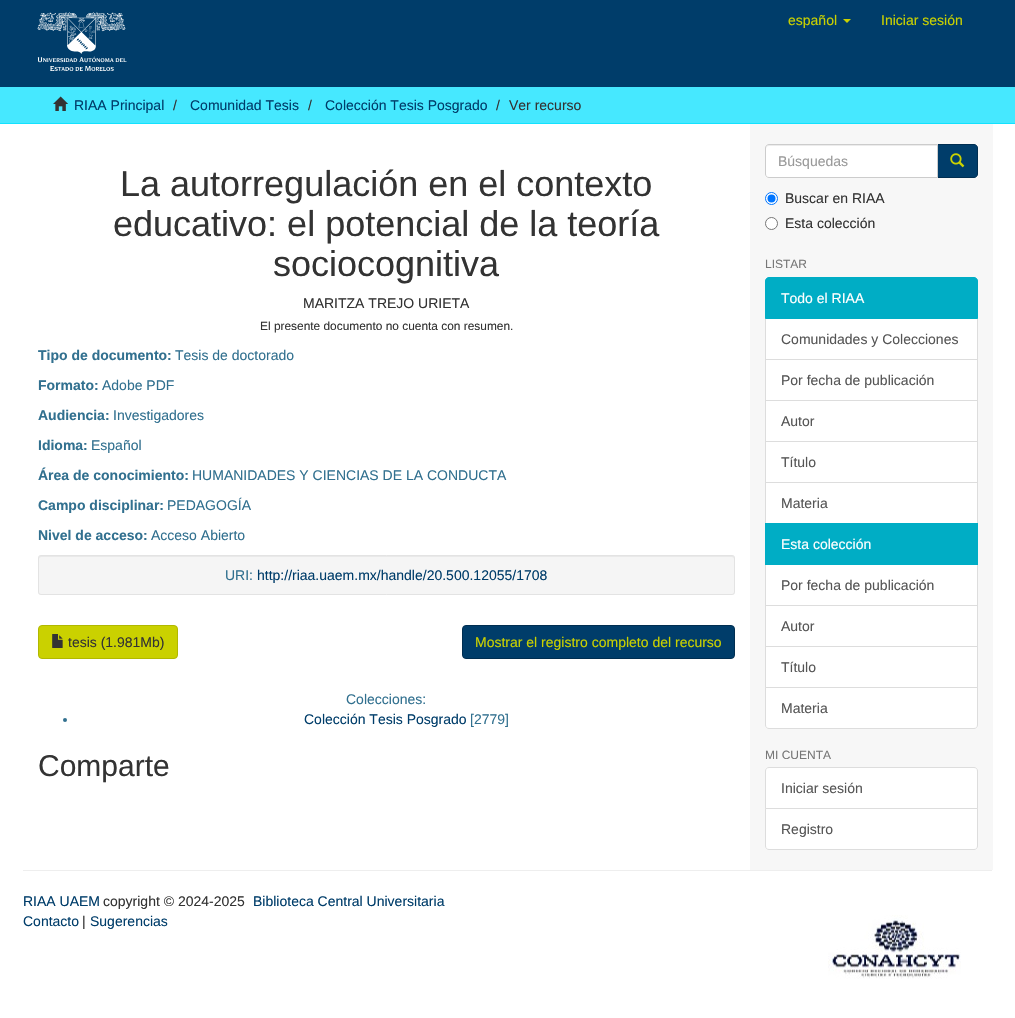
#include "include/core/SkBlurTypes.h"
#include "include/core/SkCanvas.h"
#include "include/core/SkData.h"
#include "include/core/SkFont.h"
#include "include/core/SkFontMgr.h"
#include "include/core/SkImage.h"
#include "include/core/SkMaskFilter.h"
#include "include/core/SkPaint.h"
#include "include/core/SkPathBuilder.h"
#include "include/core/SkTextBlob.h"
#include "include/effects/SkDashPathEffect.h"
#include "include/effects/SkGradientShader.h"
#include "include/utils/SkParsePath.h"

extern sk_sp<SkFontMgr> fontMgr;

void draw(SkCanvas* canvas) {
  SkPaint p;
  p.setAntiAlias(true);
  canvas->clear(SK_ColorWHITE);
  p.setColor(SkColorSetRGB(0, 61, 106));
  canvas->drawRect(SkRect::MakeLTRB(0, 0, 1015, 87), p);
  canvas->drawImageRect(SkImages::DeferredFromEncodedData(SkData::MakeFromFileName("images/1.png")), SkRect::MakeLTRB(37, 12, 127, 71), SkSamplingOptions());
  p.setColor(SkColorSetRGB(202, 209, 0));
  canvas->drawPath(SkPathBuilder().moveTo(843, 19).lineTo(851, 19).lineTo(847, 23).close().detach(), p);
  p.setColor(SkColorSetRGB(70, 232, 255));
  canvas->drawRect(SkRect::MakeLTRB(0, 87, 1015, 123), p);
  p.setColor(SkColorSetRGB(19, 226, 255));
  canvas->drawRect(SkRect::MakeLTRB(0, 123, 1015, 124), p);
  canvas->drawImageRect(SkImages::DeferredFromEncodedData(SkData::MakeFromFileName("images/2.png")), SkRect::MakeLTRB(53, 96, 68, 111), SkSamplingOptions());
  p.setColor(SkColorSetRGB(247, 247, 247));
  canvas->drawRect(SkRect::MakeLTRB(750, 124, 993, 870), p);
  p.setColor(SkColorSetRGB(245, 245, 245));
  canvas->drawRoundRect(SkRect::MakeLTRB(38, 555, 735, 595), 3, 3, p);
  p.setColor(SkColorSetRGB(233, 233, 233));
  canvas->drawPath(SkPathBuilder().moveTo(41, 557).lineTo(732, 557).cubicTo(733, 557, 734, 558, 734, 559).cubicTo(734, 558, 734, 556, 732, 556).lineTo(41, 556).cubicTo(39, 556, 39, 558, 39, 559).cubicTo(39, 558, 40, 557, 41, 557).close().detach(), p);
  p.setStyle(SkPaint::kStroke_Style);
  p.setStrokeWidth(1);
  p.setColor(SkColorSetRGB(227, 227, 227));
  canvas->drawRoundRect(SkRect::MakeLTRB(38.5f, 555.5f, 734.5f, 594.5f), 2.5f, 2.5f, p);
  p.setStyle(SkPaint::kFill_Style);
  p.setColor(SkColorSetRGB(202, 209, 0));
  canvas->drawRoundRect(SkRect::MakeLTRB(38.5f, 625.5f, 177.5f, 658.5f), 3.5f, 3.5f, p);
  p.setStyle(SkPaint::kStroke_Style);
  p.setColor(SkColorSetRGB(177, 184, 0));
  canvas->drawRoundRect(SkRect::MakeLTRB(38.5f, 625.5f, 177.5f, 658.5f), 3.5f, 3.5f, p);
  canvas->drawImageRect(SkImages::DeferredFromEncodedData(SkData::MakeFromFileName("images/3.png")), SkRect::MakeLTRB(52, 634, 63, 648), SkSamplingOptions());
  p.setStyle(SkPaint::kFill_Style);
  p.setColor(SkColorSetRGB(0, 61, 106));
  canvas->drawRoundRect(SkRect::MakeLTRB(462.5f, 625.5f, 734.5f, 658.5f), 3.5f, 3.5f, p);
  p.setStyle(SkPaint::kStroke_Style);
  p.setColor(SkColorSetRGB(0, 46, 81));
  canvas->drawRoundRect(SkRect::MakeLTRB(462.5f, 625.5f, 734.5f, 658.5f), 3.5f, 3.5f, p);
  p.setStyle(SkPaint::kFill_Style);
  p.setColor(SkColorSetRGB(49, 112, 143));
  canvas->drawCircle(65, 720, 2, p);
  p.setColor(SkColorSetRGB(0, 61, 106));
  canvas->drawPath(SkPathBuilder().moveTo(937.5f, 144.5f).lineTo(974, 144.5f).cubicTo(976, 144.5f, 977.5f, 146, 977.5f, 148).lineTo(977.5f, 174).cubicTo(977.5f, 176, 976, 177.5f, 974, 177.5f).lineTo(937.5f, 177.5f).close().detach(), p);
  p.setStyle(SkPaint::kStroke_Style);
  p.setColor(SkColorSetRGB(0, 46, 81));
  canvas->drawPath(SkPathBuilder().moveTo(937.5f, 144.5f).lineTo(974, 144.5f).cubicTo(976, 144.5f, 977.5f, 146, 977.5f, 148).lineTo(977.5f, 174).cubicTo(977.5f, 176, 976, 177.5f, 974, 177.5f).lineTo(937.5f, 177.5f).close().detach(), p);
  p.setStyle(SkPaint::kFill_Style);
  p.setColor(SK_ColorWHITE);
  canvas->drawPath(SkPathBuilder().moveTo(769, 144).lineTo(938, 144).lineTo(938, 178).lineTo(769, 178).cubicTo(767, 178, 765, 176, 765, 174).lineTo(765, 148).cubicTo(765, 146, 767, 144, 769, 144).close().detach(), p);
  p.setColor(SkColorSetRGB(236, 236, 236));
  canvas->drawPath(SkPathBuilder().moveTo(769, 146).lineTo(937, 146).lineTo(937, 145).lineTo(768, 145).cubicTo(766, 145, 766, 147, 766, 149).cubicTo(766, 147, 767, 146, 769, 146).close().detach(), p);
  p.setStyle(SkPaint::kStroke_Style);
  p.setColor(SkColorSetRGB(204, 204, 204));
  canvas->drawPath(SkPathBuilder().moveTo(769, 144.5f).lineTo(937.5f, 144.5f).lineTo(937.5f, 177.5f).lineTo(769, 177.5f).cubicTo(767, 177.5f, 765.5f, 176, 765.5f, 174).lineTo(765.5f, 148).cubicTo(765.5f, 146, 767, 144.5f, 769, 144.5f).close().detach(), p);
  canvas->drawImageRect(SkImages::DeferredFromEncodedData(SkData::MakeFromFileName("images/4.png")), SkRect::MakeLTRB(950, 153, 965, 168), SkSamplingOptions());
  p.setStyle(SkPaint::kFill_Style);
  p.setColor(SK_ColorWHITE);
  canvas->drawCircle(771.5f, 198.5f, 6, p);
  p.setStyle(SkPaint::kStroke_Style);
  p.setColor(SkColorSetRGB(0, 117, 255));
  canvas->drawCircle(771.5f, 198.5f, 6, p);
  p.setStyle(SkPaint::kFill_Style);
  canvas->drawCircle(771.5f, 198.5f, 4, p);
  p.setColor(SK_ColorWHITE);
  canvas->drawCircle(771.5f, 223.5f, 6, p);
  p.setStyle(SkPaint::kStroke_Style);
  p.setColor(SkColorSetRGB(118, 118, 118));
  canvas->drawCircle(771.5f, 223.5f, 6, p);
  p.setStyle(SkPaint::kFill_Style);
  p.setColor(SK_ColorWHITE);
  canvas->drawRect(SkRect::MakeLTRB(765.5f, 318.5f, 977.5f, 359.5f), p);
  p.setStyle(SkPaint::kStroke_Style);
  p.setColor(SkColorSetRGB(221, 221, 221));
  canvas->drawRect(SkRect::MakeLTRB(765.5f, 318.5f, 977.5f, 359.5f), p);
  p.setStyle(SkPaint::kFill_Style);
  p.setColor(SkColorSetRGB(0, 173, 197));
  canvas->drawPath(SkPathBuilder().moveTo(769, 277.5f).lineTo(974, 277.5f).cubicTo(976, 277.5f, 977.5f, 279, 977.5f, 281).lineTo(977.5f, 318.5f).lineTo(765.5f, 318.5f).lineTo(765.5f, 281).cubicTo(765.5f, 279, 767, 277.5f, 769, 277.5f).close().detach(), p);
  p.setStyle(SkPaint::kStroke_Style);
  canvas->drawPath(SkPathBuilder().moveTo(769, 277.5f).lineTo(974, 277.5f).cubicTo(976, 277.5f, 977.5f, 279, 977.5f, 281).lineTo(977.5f, 318.5f).lineTo(765.5f, 318.5f).lineTo(765.5f, 281).cubicTo(765.5f, 279, 767, 277.5f, 769, 277.5f).close().detach(), p);
  p.setStyle(SkPaint::kFill_Style);
  p.setColor(SK_ColorWHITE);
  canvas->drawRect(SkRect::MakeLTRB(765.5f, 359.5f, 977.5f, 400.5f), p);
  p.setStyle(SkPaint::kStroke_Style);
  p.setColor(SkColorSetRGB(221, 221, 221));
  canvas->drawRect(SkRect::MakeLTRB(765.5f, 359.5f, 977.5f, 400.5f), p);
  p.setStyle(SkPaint::kFill_Style);
  p.setColor(SK_ColorWHITE);
  canvas->drawRect(SkRect::MakeLTRB(765.5f, 400.5f, 977.5f, 441.5f), p);
  p.setStyle(SkPaint::kStroke_Style);
  p.setColor(SkColorSetRGB(221, 221, 221));
  canvas->drawRect(SkRect::MakeLTRB(765.5f, 400.5f, 977.5f, 441.5f), p);
  p.setStyle(SkPaint::kFill_Style);
  p.setColor(SK_ColorWHITE);
  canvas->drawRect(SkRect::MakeLTRB(765.5f, 441.5f, 977.5f, 482.5f), p);
  p.setStyle(SkPaint::kStroke_Style);
  p.setColor(SkColorSetRGB(221, 221, 221));
  canvas->drawRect(SkRect::MakeLTRB(765.5f, 441.5f, 977.5f, 482.5f), p);
  p.setStyle(SkPaint::kFill_Style);
  p.setColor(SK_ColorWHITE);
  canvas->drawRect(SkRect::MakeLTRB(765.5f, 482.5f, 977.5f, 523.5f), p);
  p.setStyle(SkPaint::kStroke_Style);
  p.setColor(SkColorSetRGB(221, 221, 221));
  canvas->drawRect(SkRect::MakeLTRB(765.5f, 482.5f, 977.5f, 523.5f), p);
  p.setStyle(SkPaint::kFill_Style);
  p.setColor(SK_ColorWHITE);
  canvas->drawRect(SkRect::MakeLTRB(765.5f, 564.5f, 977.5f, 605.5f), p);
  p.setStyle(SkPaint::kStroke_Style);
  p.setColor(SkColorSetRGB(221, 221, 221));
  canvas->drawRect(SkRect::MakeLTRB(765.5f, 564.5f, 977.5f, 605.5f), p);
  p.setStyle(SkPaint::kFill_Style);
  p.setColor(SkColorSetRGB(0, 173, 197));
  canvas->drawRect(SkRect::MakeLTRB(765, 523, 978, 565), p);
  p.setColor(SK_ColorWHITE);
  canvas->drawRect(SkRect::MakeLTRB(765.5f, 605.5f, 977.5f, 646.5f), p);
  p.setStyle(SkPaint::kStroke_Style);
  p.setColor(SkColorSetRGB(221, 221, 221));
  canvas->drawRect(SkRect::MakeLTRB(765.5f, 605.5f, 977.5f, 646.5f), p);
  p.setStyle(SkPaint::kFill_Style);
  p.setColor(SK_ColorWHITE);
  canvas->drawRect(SkRect::MakeLTRB(765.5f, 646.5f, 977.5f, 687.5f), p);
  p.setStyle(SkPaint::kStroke_Style);
  p.setColor(SkColorSetRGB(221, 221, 221));
  canvas->drawRect(SkRect::MakeLTRB(765.5f, 646.5f, 977.5f, 687.5f), p);
  p.setStyle(SkPaint::kFill_Style);
  p.setColor(SK_ColorWHITE);
  canvas->drawPath(SkPathBuilder().moveTo(765.5f, 687.5f).lineTo(977.5f, 687.5f).lineTo(977.5f, 725).cubicTo(977.5f, 727, 976, 728.5f, 974, 728.5f).lineTo(769, 728.5f).cubicTo(767, 728.5f, 765.5f, 727, 765.5f, 725).close().detach(), p);
  p.setStyle(SkPaint::kStroke_Style);
  p.setColor(SkColorSetRGB(221, 221, 221));
  canvas->drawPath(SkPathBuilder().moveTo(765.5f, 687.5f).lineTo(977.5f, 687.5f).lineTo(977.5f, 725).cubicTo(977.5f, 727, 976, 728.5f, 974, 728.5f).lineTo(769, 728.5f).cubicTo(767, 728.5f, 765.5f, 727, 765.5f, 725).close().detach(), p);
  p.setStyle(SkPaint::kFill_Style);
  p.setColor(SK_ColorWHITE);
  canvas->drawPath(SkPathBuilder().moveTo(769, 767.5f).lineTo(974, 767.5f).cubicTo(976, 767.5f, 977.5f, 769, 977.5f, 771).lineTo(977.5f, 808.5f).lineTo(765.5f, 808.5f).lineTo(765.5f, 771).cubicTo(765.5f, 769, 767, 767.5f, 769, 767.5f).close().detach(), p);
  p.setStyle(SkPaint::kStroke_Style);
  p.setColor(SkColorSetRGB(221, 221, 221));
  canvas->drawPath(SkPathBuilder().moveTo(769, 767.5f).lineTo(974, 767.5f).cubicTo(976, 767.5f, 977.5f, 769, 977.5f, 771).lineTo(977.5f, 808.5f).lineTo(765.5f, 808.5f).lineTo(765.5f, 771).cubicTo(765.5f, 769, 767, 767.5f, 769, 767.5f).close().detach(), p);
  p.setStyle(SkPaint::kFill_Style);
  p.setColor(SK_ColorWHITE);
  canvas->drawPath(SkPathBuilder().moveTo(765.5f, 808.5f).lineTo(977.5f, 808.5f).lineTo(977.5f, 846).cubicTo(977.5f, 848, 976, 849.5f, 974, 849.5f).lineTo(769, 849.5f).cubicTo(767, 849.5f, 765.5f, 848, 765.5f, 846).close().detach(), p);
  p.setStyle(SkPaint::kStroke_Style);
  p.setColor(SkColorSetRGB(221, 221, 221));
  canvas->drawPath(SkPathBuilder().moveTo(765.5f, 808.5f).lineTo(977.5f, 808.5f).lineTo(977.5f, 846).cubicTo(977.5f, 848, 976, 849.5f, 974, 849.5f).lineTo(769, 849.5f).cubicTo(767, 849.5f, 765.5f, 848, 765.5f, 846).close().detach(), p);
  p.setStyle(SkPaint::kFill_Style);
  p.setColor(SkColorSetRGB(238, 238, 238));
  canvas->drawRect(SkRect::MakeLTRB(23, 870, 992, 871), p);
  canvas->drawImageRect(SkImages::DeferredFromEncodedData(SkData::MakeFromFileName("images/5.png")), SkRect::MakeLTRB(828, 915, 961, 979), SkSamplingOptions());
  SkFont font1(fontMgr->matchFamilyStyle("Liberation Sans", SkFontStyle::Normal()), 14);
  font1.setSubpixel(true);
  p.setColor(SkColorSetRGB(202, 209, 0));
  canvas->drawString("español", 788, 25, font1, p);
  canvas->drawString("Iniciar sesión", 881, 25, font1, p);
  p.setColor(SkColorSetRGB(0, 61, 106));
  canvas->drawString("RIAA Principal", 74, 110, font1, p);
  p.setColor(SkColorSetRGB(51, 51, 51));
  canvas->drawString("/", 173, 110, font1, p);
  p.setColor(SkColorSetRGB(0, 61, 106));
  canvas->drawString("Comunidad Tesis", 190, 110, font1, p);
  p.setColor(SkColorSetRGB(51, 51, 51));
  canvas->drawString("/", 308, 110, font1, p);
  p.setColor(SkColorSetRGB(0, 61, 106));
  canvas->drawString("Colección Tesis Posgrado", 325, 110, font1, p);
  p.setColor(SkColorSetRGB(51, 51, 51));
  canvas->drawString("/", 496, 110, font1, p);
  canvas->drawString("Ver recurso", 509, 110, font1, p);
  SkFont font2(fontMgr->matchFamilyStyle("Liberation Sans", SkFontStyle::Normal()), 36);
  font2.setSubpixel(true);
  canvas->drawString("La autorregulación en el contexto", 120, 196, font2, p);
  canvas->drawString("educativo: el potencial de la teoría", 113, 236, font2, p);
  canvas->drawString("sociocognitiva", 273, 276, font2, p);
  canvas->drawString("MARITZA TREJO URIETA", 303, 308, font1, p);
  SkFont font3(fontMgr->matchFamilyStyle("Liberation Sans", SkFontStyle::Normal()), 11.9f);
  font3.setSubpixel(true);
  canvas->drawString("El presente documento no cuenta con resumen.", 260, 330, font3, p);
  SkFont font4(fontMgr->matchFamilyStyle("Liberation Sans", SkFontStyle::Bold()), 14);
  font4.setSubpixel(true);
  p.setColor(SkColorSetRGB(49, 112, 143));
  canvas->drawString("Tipo de documento:", 38, 360, font4, p);
  canvas->drawString("Tesis de doctorado", 175, 360, font1, p);
  canvas->drawString("Formato:", 38, 390, font4, p);
  canvas->drawString("Adobe PDF", 102, 390, font1, p);
  canvas->drawString("Audiencia:", 38, 420, font4, p);
  canvas->drawString("Investigadores", 113, 420, font1, p);
  canvas->drawString("Idioma:", 38, 450, font4, p);
  canvas->drawString("Español", 91, 450, font1, p);
  canvas->drawString("Área de conocimiento:", 38, 480, font4, p);
  canvas->drawString("HUMANIDADES Y CIENCIAS DE LA CONDUCTA", 192, 480, font1, p);
  canvas->drawString("Campo disciplinar:", 38, 510, font4, p);
  canvas->drawString("PEDAGOGÍA", 167, 510, font1, p);
  canvas->drawString("Nivel de acceso:", 38, 540, font4, p);
  canvas->drawString("Acceso Abierto", 151, 540, font1, p);
  canvas->drawString("URI:", 225, 580, font1, p);
  p.setColor(SkColorSetRGB(0, 61, 106));
  canvas->drawString("http://riaa.uaem.mx/handle/20.500.12055/1708", 257, 580, font1, p);
  p.setColor(SkColorSetRGB(51, 51, 51));
  canvas->drawString("tesis (1.981Mb)", 68, 647, font1, p);
  p.setColor(SkColorSetRGB(202, 209, 0));
  canvas->drawString("Mostrar el registro completo del recurso", 475, 647, font1, p);
  p.setColor(SkColorSetRGB(49, 112, 143));
  canvas->drawString("Colecciones:", 346, 704, font1, p);
  p.setColor(SkColorSetRGB(0, 61, 106));
  canvas->drawString("Colección Tesis Posgrado", 304, 724, font1, p);
  p.setColor(SkColorSetRGB(49, 112, 143));
  canvas->drawString("[2779]", 470, 724, font1, p);
  SkFont font5(fontMgr->matchFamilyStyle("Liberation Sans", SkFontStyle::Normal()), 30);
  font5.setSubpixel(true);
  p.setColor(SkColorSetRGB(51, 51, 51));
  canvas->drawString("Comparte", 38, 776, font5, p);
  p.setColor(SkColorSetRGB(153, 153, 153));
  canvas->drawString("Búsquedas", 778, 166, font1, p);
  p.setColor(SkColorSetRGB(51, 51, 51));
  canvas->drawString("Buscar en RIAA", 785, 203, font1, p);
  canvas->drawString("Esta colección", 785, 228, font1, p);
  SkFont font6(fontMgr->matchFamilyStyle("Liberation Sans", SkFontStyle::Normal()), 12);
  font6.setSubpixel(true);
  p.setColor(SkColorSetRGB(119, 119, 119));
  canvas->drawString("LISTAR", 765, 268, font6, p);
  p.setColor(SK_ColorWHITE);
  canvas->drawString("Todo el RIAA", 781, 303, font1, p);
  p.setColor(SkColorSetRGB(85, 85, 85));
  canvas->drawString("Comunidades y Colecciones", 781, 344, font1, p);
  canvas->drawString("Por fecha de publicación", 781, 385, font1, p);
  canvas->drawString("Autor", 781, 426, font1, p);
  canvas->drawString("Título", 781, 467, font1, p);
  canvas->drawString("Materia", 781, 508, font1, p);
  p.setColor(SK_ColorWHITE);
  canvas->drawString("Esta colección", 781, 549, font1, p);
  p.setColor(SkColorSetRGB(85, 85, 85));
  canvas->drawString("Por fecha de publicación", 781, 590, font1, p);
  canvas->drawString("Autor", 781, 631, font1, p);
  canvas->drawString("Título", 781, 672, font1, p);
  canvas->drawString("Materia", 781, 713, font1, p);
  p.setColor(SkColorSetRGB(119, 119, 119));
  canvas->drawString("MI CUENTA", 765, 759, font6, p);
  p.setColor(SkColorSetRGB(85, 85, 85));
  canvas->drawString("Iniciar sesión", 781, 793, font1, p);
  canvas->drawString("Registro", 781, 834, font1, p);
  p.setColor(SkColorSetRGB(0, 61, 106));
  canvas->drawString("RIAA UAEM", 23, 906, font1, p);
  p.setColor(SkColorSetRGB(51, 51, 51));
  canvas->drawString("copyright © 2024-2025", 103, 906, font1, p);
  p.setColor(SkColorSetRGB(0, 61, 106));
  canvas->drawString("Biblioteca Central Universitaria", 253, 906, font1, p);
  canvas->drawString("Contacto", 23, 926, font1, p);
  p.setColor(SkColorSetRGB(51, 51, 51));
  canvas->drawString("|", 82, 926, font1, p);
  p.setColor(SkColorSetRGB(0, 61, 106));
  canvas->drawString("Sugerencias", 90, 926, font1, p);
}
